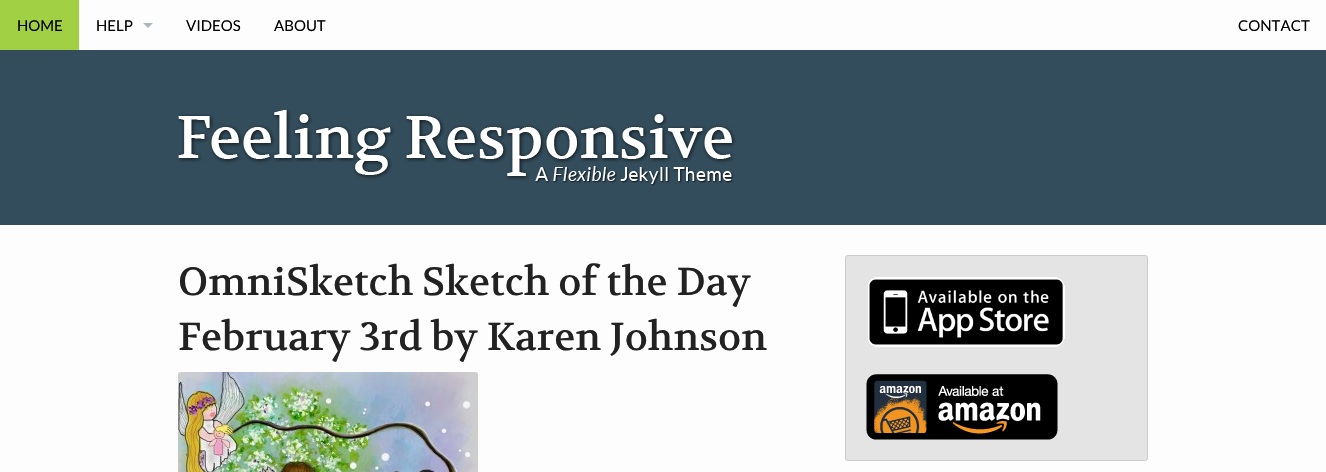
#include "include/core/SkBlurTypes.h"
#include "include/core/SkCanvas.h"
#include "include/core/SkData.h"
#include "include/core/SkFont.h"
#include "include/core/SkFontMgr.h"
#include "include/core/SkImage.h"
#include "include/core/SkMaskFilter.h"
#include "include/core/SkPaint.h"
#include "include/core/SkPathBuilder.h"
#include "include/core/SkTextBlob.h"
#include "include/effects/SkDashPathEffect.h"
#include "include/effects/SkGradientShader.h"
#include "include/utils/SkParsePath.h"

extern sk_sp<SkFontMgr> fontMgr;

void draw(SkCanvas* canvas) {
  SkPaint p;
  p.setAntiAlias(true);
  canvas->clear(SkColorSetRGB(253, 253, 253));
  p.setColor(SkColorSetRGB(161, 208, 68));
  canvas->drawRect(SkRect::MakeLTRB(0, 0, 79, 50), p);
  p.setColor(SkColorSetRGB(172, 183, 189));
  canvas->drawPath(SkPathBuilder().moveTo(143, 23).lineTo(153, 23).lineTo(148, 28).close().detach(), p);
  p.setColor(SkColorSetRGB(51, 77, 92));
  canvas->drawRect(SkRect::MakeLTRB(0, 50, 1326, 225), p);
  canvas->drawImageRect(SkImages::DeferredFromEncodedData(SkData::MakeFromFileName("images/1.png")), SkRect::MakeLTRB(178, 110, 736, 186), SkSamplingOptions());
  canvas->drawImageRect(SkImages::DeferredFromEncodedData(SkData::MakeFromFileName("images/2.png")), SkRect::MakeLTRB(178, 372, 478, 472), SkSamplingOptions());
  p.setColor(SkColorSetRGB(228, 228, 228));
  canvas->drawRoundRect(SkRect::MakeLTRB(845.5f, 255.5f, 1147.5f, 460.5f), 2.5f, 2.5f, p);
  p.setStyle(SkPaint::kStroke_Style);
  p.setStrokeWidth(1);
  p.setColor(SkColorSetRGB(203, 203, 203));
  canvas->drawRoundRect(SkRect::MakeLTRB(845.5f, 255.5f, 1147.5f, 460.5f), 2.5f, 2.5f, p);
  canvas->drawImageRect(SkImages::DeferredFromEncodedData(SkData::MakeFromFileName("images/3.png")), SkRect::MakeLTRB(868, 277, 1065, 347), SkSamplingOptions());
  canvas->drawImageRect(SkImages::DeferredFromEncodedData(SkData::MakeFromFileName("images/4.png")), SkRect::MakeLTRB(866, 374, 1058, 440), SkSamplingOptions());
  SkFont font1(fontMgr->matchFamilyStyle("Lato", SkFontStyle::Normal()), 15);
  font1.setSubpixel(true);
  p.setStyle(SkPaint::kFill_Style);
  p.setColor(SK_ColorBLACK);
  canvas->drawString("HOME", 17, 31, font1, p);
  canvas->drawString("HELP", 96, 31, font1, p);
  canvas->drawString("VIDEOS", 186, 31, font1, p);
  canvas->drawString("ABOUT", 274, 31, font1, p);
  canvas->drawString("CONTACT", 1238, 31, font1, p);
  SkFont font2(fontMgr->matchFamilyStyle("Volkhov", SkFontStyle::Normal()), 39);
  font2.setSubpixel(true);
  p.setColor(SkColorSetRGB(34, 34, 34));
  canvas->drawString("OmniSketch Sketch of the Day", 178, 295, font2, p);
  canvas->drawString("February 3rd by Karen Johnson", 178, 350, font2, p);
}
